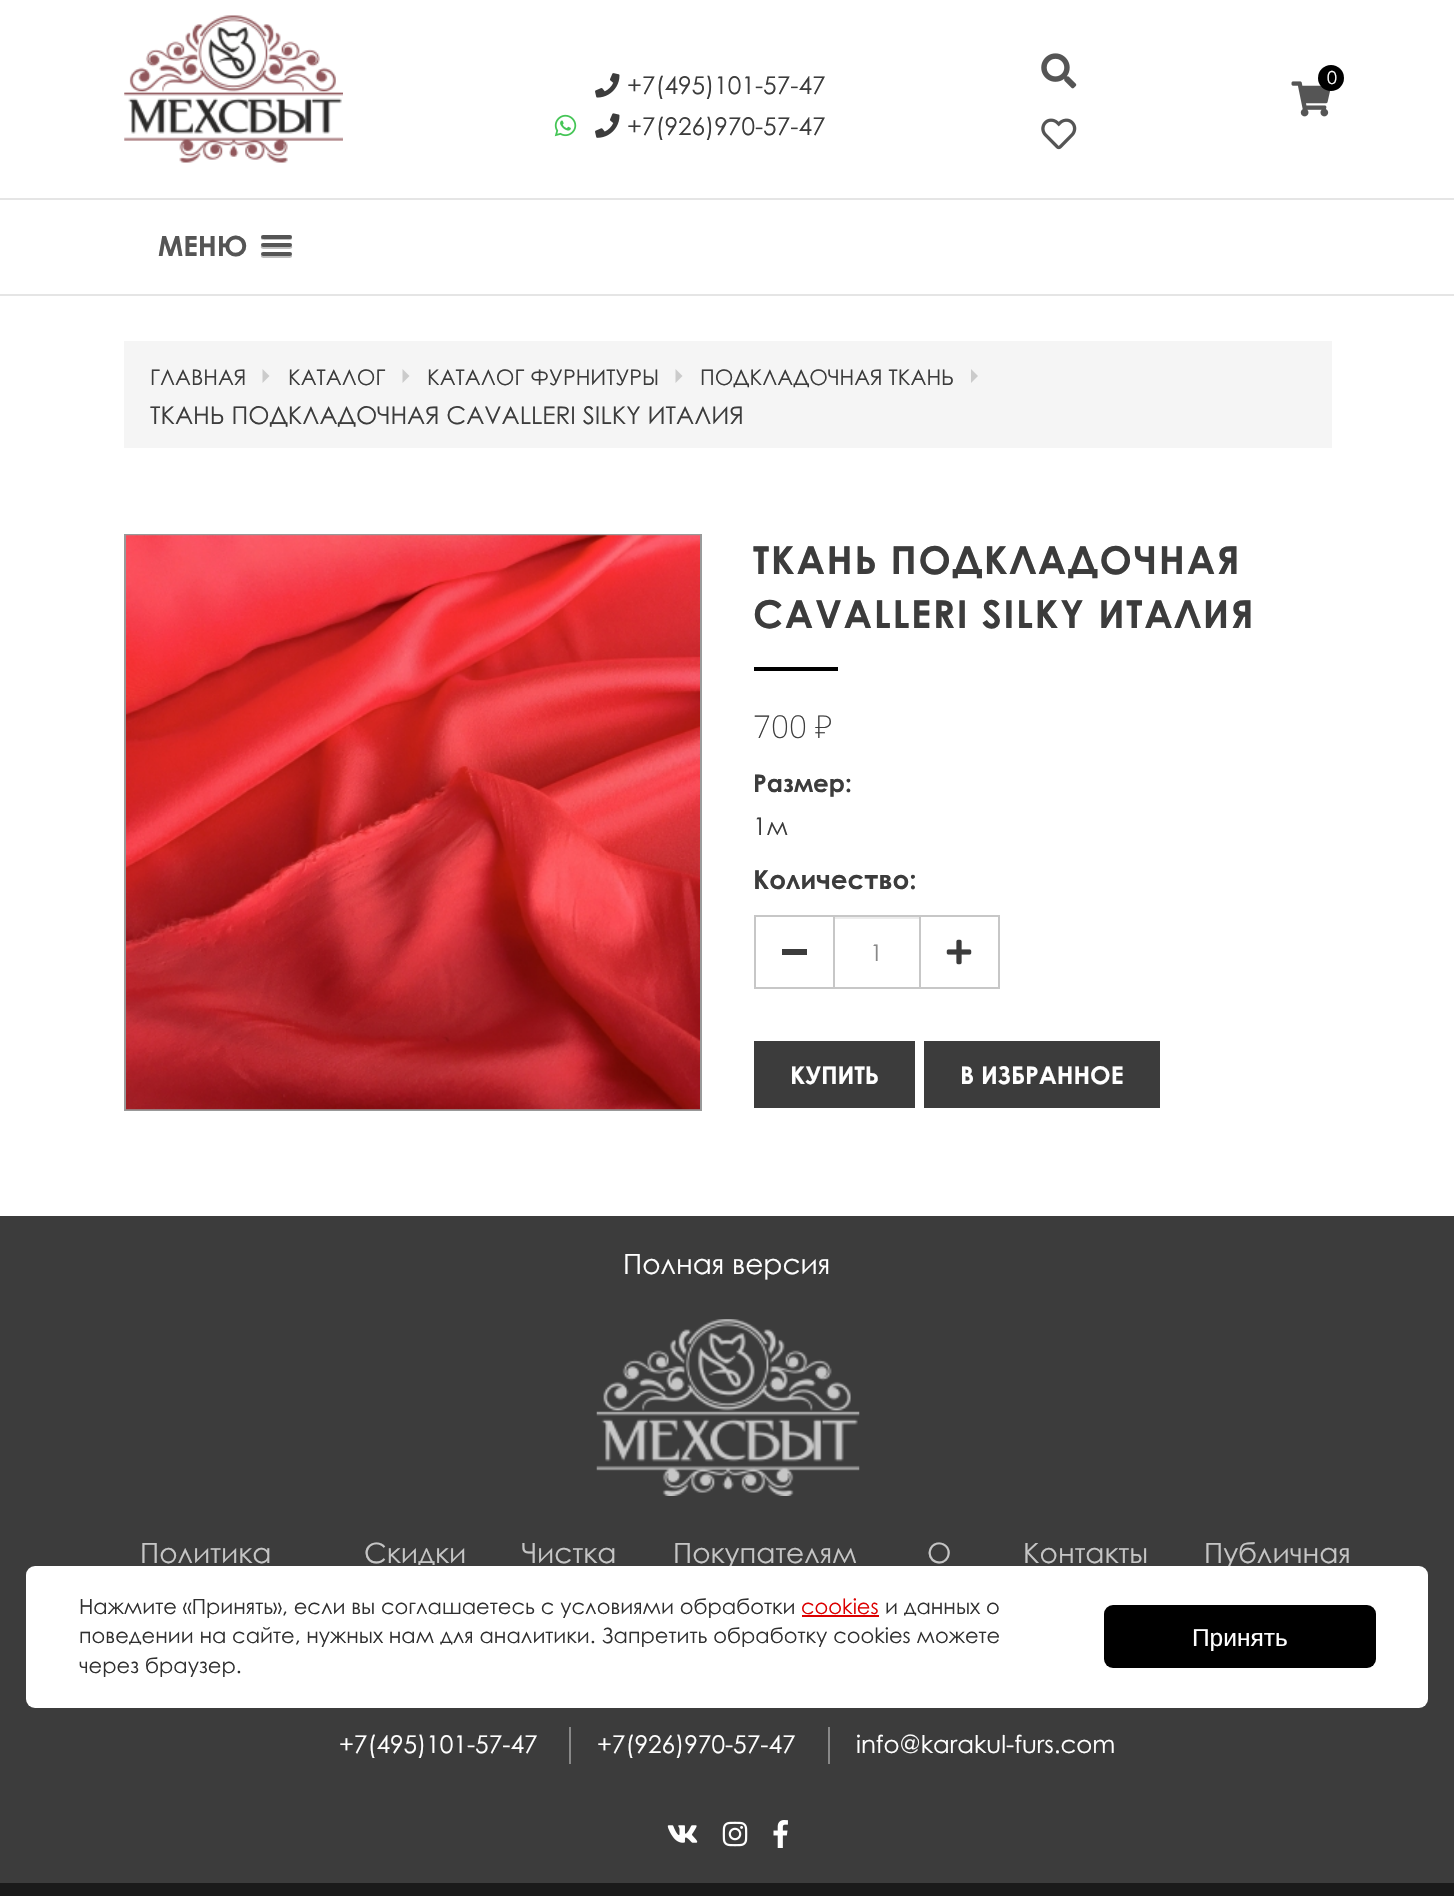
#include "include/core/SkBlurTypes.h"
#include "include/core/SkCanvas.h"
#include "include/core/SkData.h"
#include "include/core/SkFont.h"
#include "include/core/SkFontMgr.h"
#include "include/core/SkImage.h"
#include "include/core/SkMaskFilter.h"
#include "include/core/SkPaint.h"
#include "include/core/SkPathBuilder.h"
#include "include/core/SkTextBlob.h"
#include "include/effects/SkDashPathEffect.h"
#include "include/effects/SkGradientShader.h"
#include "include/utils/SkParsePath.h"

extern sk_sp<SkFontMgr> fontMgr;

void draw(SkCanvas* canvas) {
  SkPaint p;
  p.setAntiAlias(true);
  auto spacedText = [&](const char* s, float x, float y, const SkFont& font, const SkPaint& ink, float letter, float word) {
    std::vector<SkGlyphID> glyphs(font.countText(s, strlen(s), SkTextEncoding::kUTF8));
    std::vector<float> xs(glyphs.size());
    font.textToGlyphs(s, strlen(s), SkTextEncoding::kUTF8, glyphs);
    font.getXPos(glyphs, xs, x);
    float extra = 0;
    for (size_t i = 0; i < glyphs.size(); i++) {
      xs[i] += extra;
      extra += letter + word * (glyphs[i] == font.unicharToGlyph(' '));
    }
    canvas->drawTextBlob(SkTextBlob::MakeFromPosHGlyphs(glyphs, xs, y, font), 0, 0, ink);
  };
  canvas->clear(SK_ColorWHITE);
  canvas->drawImageRect(SkImages::DeferredFromEncodedData(SkData::MakeFromFileName("images/1.png")), SkRect::MakeLTRB(124, 15, 343, 163), SkSamplingOptions());
  canvas->drawImageRect(SkImages::DeferredFromEncodedData(SkData::MakeFromFileName("images/2.png")), SkRect::MakeLTRB(595, 73, 620, 98), SkSamplingOptions());
  canvas->drawImageRect(SkImages::DeferredFromEncodedData(SkData::MakeFromFileName("images/3.png")), SkRect::MakeLTRB(554, 114, 577, 137), SkSamplingOptions());
  canvas->drawImageRect(SkImages::DeferredFromEncodedData(SkData::MakeFromFileName("images/4.png")), SkRect::MakeLTRB(595, 113, 620, 138), SkSamplingOptions());
  canvas->drawImageRect(SkImages::DeferredFromEncodedData(SkData::MakeFromFileName("images/5.png")), SkRect::MakeLTRB(1041, 53, 1077, 89), SkSamplingOptions());
  canvas->drawImageRect(SkImages::DeferredFromEncodedData(SkData::MakeFromFileName("images/6.png")), SkRect::MakeLTRB(1041, 118, 1077, 150), SkSamplingOptions());
  canvas->drawImageRect(SkImages::DeferredFromEncodedData(SkData::MakeFromFileName("images/7.png")), SkRect::MakeLTRB(1291, 81, 1331, 117), SkSamplingOptions());
  p.setColor(SK_ColorBLACK);
  canvas->drawCircle(1331, 78, 13, p);
  p.setColor(SkColorSetRGB(229, 229, 229));
  canvas->drawRect(SkRect::MakeLTRB(0, 198, 1454, 200), p);
  canvas->drawRect(SkRect::MakeLTRB(0, 294, 1454, 296), p);
  p.setColor(SkColorSetRGB(191, 191, 191));
  canvas->drawPath(SkPathBuilder().moveTo(261, 237.5f).cubicTo(260, 241, 266.5f, 240, 267.5f, 240).lineTo(285.5f, 240).cubicTo(286.5f, 240, 293, 241, 292, 237.5f).lineTo(290.5f, 238).lineTo(262.5f, 238).close().detach(), p);
  p.setColor(SkColorSetRGB(85, 85, 85));
  canvas->drawRoundRect(SkRect::MakeLTRB(261, 235, 292, 239), 2, 2, p);
  p.setColor(SkColorSetRGB(191, 191, 191));
  canvas->drawPath(SkPathBuilder().moveTo(261, 246).cubicTo(259.5f, 250, 266.5f, 249, 267.5f, 249).lineTo(285.5f, 249).cubicTo(286.5f, 249, 293.5f, 250, 292, 246).lineTo(290.5f, 246.5f).lineTo(262.5f, 246.5f).close().detach(), p);
  p.setColor(SkColorSetRGB(85, 85, 85));
  canvas->drawRoundRect(SkRect::MakeLTRB(261, 243, 292, 247), 2, 2, p);
  p.setColor(SkColorSetRGB(191, 191, 191));
  canvas->drawPath(SkPathBuilder().moveTo(261.5f, 255).cubicTo(259, 259, 267, 258, 267.5f, 258).lineTo(285.5f, 258).cubicTo(286, 258, 294, 259, 291.5f, 255).lineTo(290.5f, 255.5f).lineTo(262.5f, 255.5f).close().detach(), p);
  p.setColor(SkColorSetRGB(85, 85, 85));
  canvas->drawRoundRect(SkRect::MakeLTRB(261, 252, 292, 256), 2, 2, p);
  p.setColor(SkColorSetRGB(245, 245, 245));
  canvas->drawRect(SkRect::MakeLTRB(124, 341, 1332, 448), p);
  p.setColor(SkColorSetRGB(203, 203, 203));
  canvas->drawPath(SkPathBuilder().moveTo(262.5f, 383).lineTo(262.5f, 369).lineTo(269.5f, 376).close().detach(), p);
  canvas->drawPath(SkPathBuilder().moveTo(402.5f, 383).lineTo(402.5f, 369).lineTo(409.5f, 376).close().detach(), p);
  canvas->drawPath(SkPathBuilder().moveTo(675.5f, 383).lineTo(675.5f, 369).lineTo(682.5f, 376).close().detach(), p);
  canvas->drawPath(SkPathBuilder().moveTo(971, 383).lineTo(971, 369).lineTo(978, 376).close().detach(), p);
  p.setStyle(SkPaint::kStroke_Style);
  p.setStrokeWidth(2);
  p.setColor(SkColorSetRGB(153, 153, 153));
  canvas->drawRect(SkRect::MakeLTRB(125, 535, 701, 1110), p);
  canvas->drawImageRect(SkImages::DeferredFromEncodedData(SkData::MakeFromFileName("images/8.png")), SkRect::MakeLTRB(126, 535, 700, 1110), SkSamplingOptions());
  p.setStyle(SkPaint::kFill_Style);
  p.setColor(SK_ColorBLACK);
  canvas->drawRect(SkRect::MakeLTRB(754, 667, 838, 671), p);
  p.setColor(SkColorSetRGB(199, 199, 199));
  canvas->drawRect(SkRect::MakeLTRB(754, 915, 833, 917), p);
  canvas->drawRect(SkRect::MakeLTRB(754, 987, 833, 989), p);
  canvas->drawRect(SkRect::MakeLTRB(754, 915, 756, 989), p);
  p.setColor(SkColorSetRGB(60, 60, 60));
  canvas->drawRect(SkRect::MakeLTRB(782, 949, 807, 955), p);
  p.setColor(SkColorSetRGB(236, 236, 236));
  canvas->drawRect(SkRect::MakeLTRB(835, 917, 919, 919), p);
  p.setStyle(SkPaint::kStroke_Style);
  p.setColor(SkColorSetRGB(199, 199, 199));
  canvas->drawRect(SkRect::MakeLTRB(834, 916, 920, 988), p);
  p.setStyle(SkPaint::kFill_Style);
  canvas->drawRect(SkRect::MakeLTRB(921, 915, 999, 917), p);
  canvas->drawRect(SkRect::MakeLTRB(998, 915, 1000, 989), p);
  canvas->drawRect(SkRect::MakeLTRB(921, 987, 999, 989), p);
  canvas->drawImageRect(SkImages::DeferredFromEncodedData(SkData::MakeFromFileName("images/9.png")), SkRect::MakeLTRB(946, 939, 972, 965), SkSamplingOptions());
  p.setColor(SkColorSetRGB(60, 60, 60));
  canvas->drawRect(SkRect::MakeLTRB(754, 1041, 915, 1108), p);
  canvas->drawRect(SkRect::MakeLTRB(924, 1041, 1160, 1108), p);
  canvas->drawRect(SkRect::MakeLTRB(0, 1216, 1454, 1883), p);
  canvas->drawImageRect(SkImages::DeferredFromEncodedData(SkData::MakeFromFileName("images/10.png")), SkRect::MakeLTRB(596, 1319, 860, 1496), SkSamplingOptions());
  p.setColor(SkColorSetRGB(136, 136, 136));
  canvas->drawRect(SkRect::MakeLTRB(569, 1727, 571, 1764), p);
  canvas->drawRect(SkRect::MakeLTRB(828, 1727, 830, 1764), p);
  canvas->drawImageRect(SkImages::DeferredFromEncodedData(SkData::MakeFromFileName("images/11.png")), SkRect::MakeLTRB(667, 1825, 698, 1843), SkSamplingOptions());
  canvas->drawImageRect(SkImages::DeferredFromEncodedData(SkData::MakeFromFileName("images/12.png")), SkRect::MakeLTRB(722, 1821, 748, 1847), SkSamplingOptions());
  canvas->drawImageRect(SkImages::DeferredFromEncodedData(SkData::MakeFromFileName("images/13.png")), SkRect::MakeLTRB(773, 1820, 788, 1848), SkSamplingOptions());
  p.setColor(SkColorSetRGB(26, 26, 26));
  canvas->drawRect(SkRect::MakeLTRB(0, 1883, 1454, 1896), p);
  SkFont font1(fontMgr->matchFamilyStyle("Century Gothic", SkFontStyle::Normal()), 24.5f);
  font1.setSubpixel(true);
  p.setColor(SkColorSetRGB(60, 60, 60));
  canvas->drawString("+7(495)101-57-47", 627, 94, font1, p);
  canvas->drawString("+7(926)970-57-47", 627, 135, font1, p);
  SkFont font2(fontMgr->matchFamilyStyle("Century Gothic", SkFontStyle::Normal()), 18);
  font2.setSubpixel(true);
  p.setColor(SK_ColorWHITE);
  canvas->drawString("0", 1327, 84, font2, p);
  SkFont font3(fontMgr->matchFamilyStyle("Century Gothic", SkFontStyle::Bold()), 28);
  font3.setSubpixel(true);
  p.setColor(SkColorSetRGB(85, 85, 85));
  canvas->drawString("МЕНЮ", 158, 256, font3, p);
  SkFont font4(fontMgr->matchFamilyStyle("Century Gothic", SkFontStyle::Normal()), 21.5f);
  font4.setSubpixel(true);
  p.setColor(SkColorSetRGB(60, 60, 60));
  canvas->drawString("ГЛАВНАЯ", 150, 385, font4, p);
  canvas->drawString("КАТАЛОГ", 288, 385, font4, p);
  canvas->drawString("КАТАЛОГ ФУРНИТУРЫ", 427, 385, font4, p);
  canvas->drawString("ПОДКЛАДОЧНАЯ ТКАНЬ", 700, 385, font4, p);
  canvas->drawString("ТКАНЬ ПОДКЛАДОЧНАЯ CAVALLERI SILKY ИТАЛИЯ", 150, 424, font1, p);
  SkFont font5(fontMgr->matchFamilyStyle("Century Gothic", SkFontStyle::Bold()), 38.5f);
  font5.setSubpixel(true);
  spacedText("ТКАНЬ ПОДКЛАДОЧНАЯ", 753, 574, font5, p, 1.7f, 0);
  spacedText("CAVALLERI SILKY ИТАЛИЯ", 753, 628, font5, p, 1.7f, 0);
  SkFont font6(fontMgr->matchFamilyStyle("Noto Sans", SkFontStyle(200, SkFontStyle::kNormal_Width, SkFontStyle::kUpright_Slant)), 31.5f);
  font6.setSubpixel(true);
  canvas->drawString("700 ₽", 753, 738, font6, p);
  SkFont font7(fontMgr->matchFamilyStyle("Century Gothic", SkFontStyle::Bold()), 24.5f);
  font7.setSubpixel(true);
  canvas->drawString("Размер:", 753, 792, font7, p);
  canvas->drawString("1м", 753, 835, font1, p);
  SkFont font8(fontMgr->matchFamilyStyle("Century Gothic", SkFontStyle::Bold()), 26.25f);
  font8.setSubpixel(true);
  canvas->drawString("Количество:", 753, 889, font8, p);
  SkFont font9(fontMgr->matchFamilyStyle("Century Gothic", SkFontStyle::Normal()), 23);
  font9.setSubpixel(true);
  p.setColor(SkColorSetRGB(136, 136, 136));
  canvas->drawString("1", 870, 961, font9, p);
  p.setColor(SK_ColorWHITE);
  canvas->drawString("КУПИТЬ", 790, 1084, font7, p);
  canvas->drawString("В ИЗБРАННОЕ", 960, 1084, font7, p);
  SkFont font10(fontMgr->matchFamilyStyle("Century Gothic", SkFontStyle::Normal()), 28);
  font10.setSubpixel(true);
  canvas->drawString("Полная версия", 623, 1274, font10, p);
  p.setColor(SkColorSetRGB(197, 197, 197));
  canvas->drawString("Политика", 140, 1563, font10, p);
  canvas->drawString("Скидки", 364, 1563, font10, p);
  canvas->drawString("Чистка", 522, 1563, font10, p);
  canvas->drawString("Покупателям", 673, 1563, font10, p);
  canvas->drawString("О", 927, 1563, font10, p);
  canvas->drawString("Контакты", 1023, 1563, font10, p);
  canvas->drawString("Публичная", 1204, 1563, font10, p);
  p.setColor(SK_ColorWHITE);
  canvas->drawString("+7(495)101-57-47", 339, 1753, font1, p);
  canvas->drawString("+7(926)970-57-47", 597, 1753, font1, p);
  canvas->drawString("info@karakul-furs.com", 856, 1753, font1, p);
  canvas->drawRoundRect(SkRect::MakeLTRB(26, 1566, 1428, 1708), 9, 9, p);
  SkFont font11(fontMgr->matchFamilyStyle("Century Gothic", SkFontStyle::Normal()), 21);
  font11.setSubpixel(true);
  p.setColor(SkColorSetRGB(48, 48, 48));
  canvas->drawString("Нажмите «Принять», если вы соглашаетесь с условиями обработки", 79, 1614, font11, p);
  p.setColor(SkColorSetRGB(220, 0, 0));
  canvas->drawString("cookies", 801, 1614, font11, p);
  canvas->drawRect(SkRect::MakeLTRB(802, 1615, 879, 1617), p);
  p.setColor(SkColorSetRGB(48, 48, 48));
  canvas->drawString("и данных о", 885, 1614, font11, p);
  canvas->drawString("поведении на сайте, нужных нам для аналитики. Запретить обработку cookies можете", 79, 1643, font11, p);
  canvas->drawString("через браузер.", 79, 1673, font11, p);
  p.setColor(SK_ColorBLACK);
  canvas->drawRoundRect(SkRect::MakeLTRB(1104, 1605, 1376, 1668), 9, 9, p);
  SkFont font12(fontMgr->matchFamilyStyle("Liberation Sans", SkFontStyle::Normal()), 24.5f);
  font12.setSubpixel(true);
  p.setColor(SK_ColorWHITE);
  canvas->drawString("Принять", 1192, 1646, font12, p);
}
